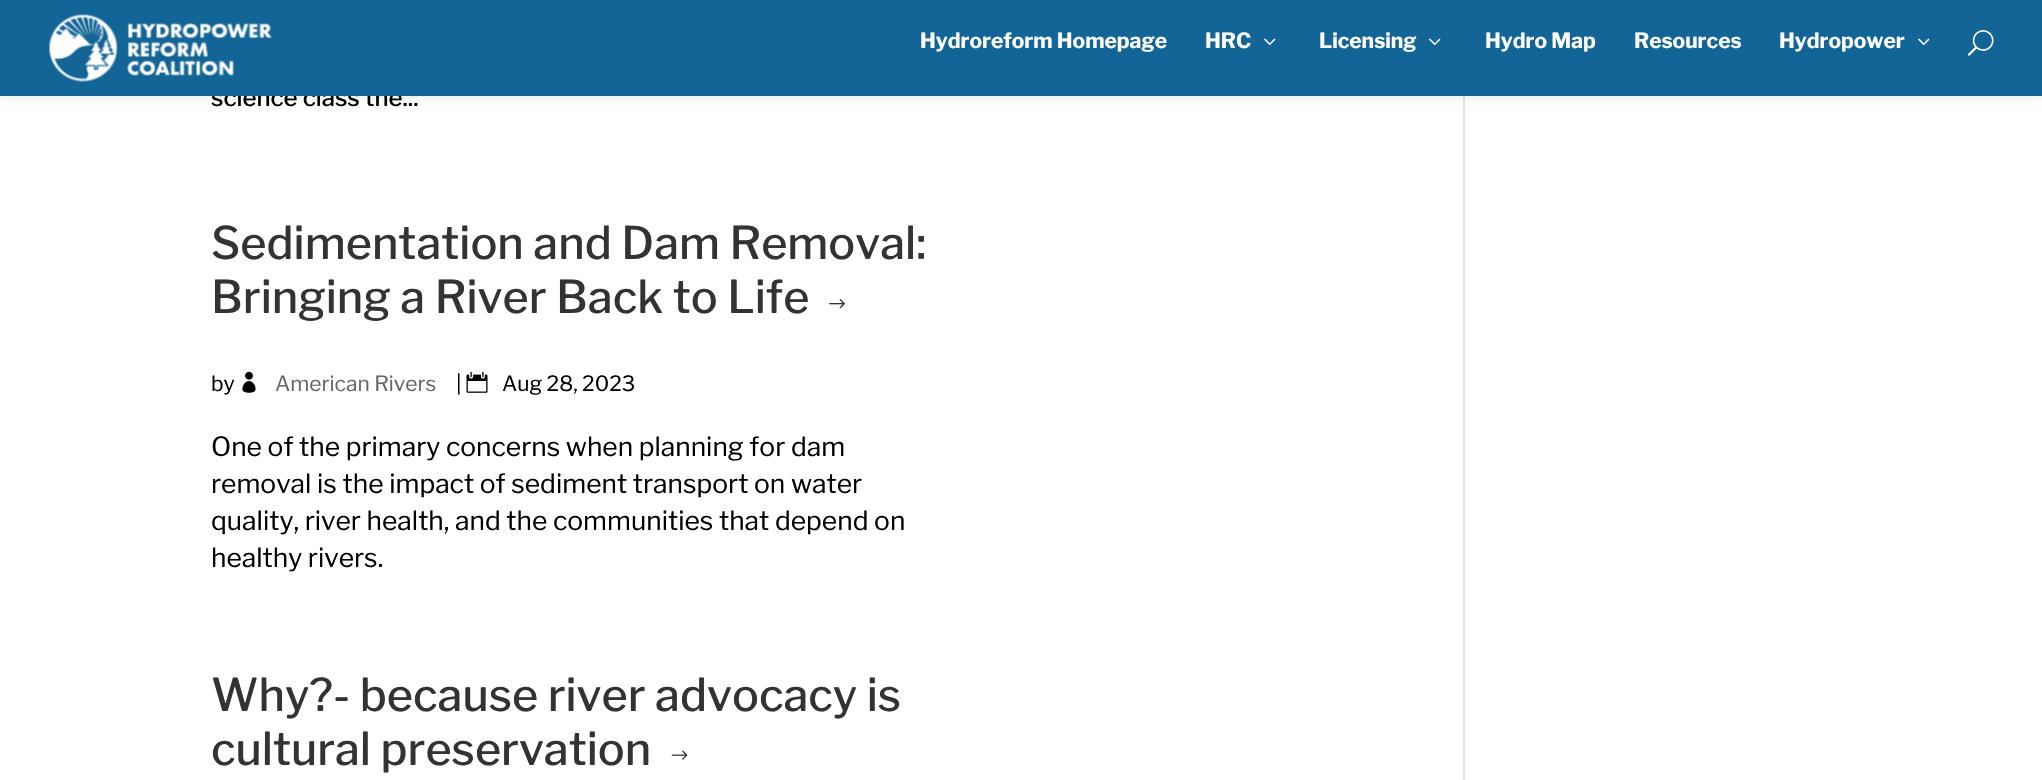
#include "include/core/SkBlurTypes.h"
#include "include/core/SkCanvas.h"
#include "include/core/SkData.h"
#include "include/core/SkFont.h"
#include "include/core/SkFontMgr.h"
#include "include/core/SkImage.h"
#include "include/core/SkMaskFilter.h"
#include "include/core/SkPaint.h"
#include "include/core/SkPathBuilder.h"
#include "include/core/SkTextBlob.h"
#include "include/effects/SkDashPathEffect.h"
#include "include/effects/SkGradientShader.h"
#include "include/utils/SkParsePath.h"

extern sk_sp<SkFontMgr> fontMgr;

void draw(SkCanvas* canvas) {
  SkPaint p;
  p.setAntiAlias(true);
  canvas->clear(SK_ColorWHITE);
  p.setColor(SkColorSetRGB(226, 226, 226));
  canvas->drawRect(SkRect::MakeLTRB(1463, 96, 1465, 780), p);
  p.setColor(SkColorSetARGB(26, 0, 0, 0));
  p.setMaskFilter(SkMaskFilter::MakeBlur(kNormal_SkBlurStyle, 5));
  canvas->drawRect(SkRect::MakeLTRB(0, 0, 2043, 96), p);
  p.setMaskFilter(nullptr);
  canvas->drawImageRect(SkImages::DeferredFromEncodedData(SkData::MakeFromFileName("images/4.png")), SkRect::MakeLTRB(829, 299, 845, 309), SkSamplingOptions());
  canvas->drawImageRect(SkImages::DeferredFromEncodedData(SkData::MakeFromFileName("images/5.png")), SkRect::MakeLTRB(242, 371, 256, 393), SkSamplingOptions());
  canvas->drawImageRect(SkImages::DeferredFromEncodedData(SkData::MakeFromFileName("images/6.png")), SkRect::MakeLTRB(466, 371, 488, 393), SkSamplingOptions());
  canvas->drawImageRect(SkImages::DeferredFromEncodedData(SkData::MakeFromFileName("images/7.png")), SkRect::MakeLTRB(671, 750, 688, 760), SkSamplingOptions());
  SkFont font1(fontMgr->matchFamilyStyle("Libre Franklin", SkFontStyle(100, SkFontStyle::kNormal_Width, SkFontStyle::kUpright_Slant)), 24);
  font1.setSubpixel(true);
  p.setColor(SK_ColorBLACK);
  canvas->drawString("science class the...", 211, 106, font1, p);
  p.setColor(SkColorSetRGB(18, 101, 150));
  canvas->drawRect(SkRect::MakeLTRB(0, 0, 2042, 96), p);
  canvas->drawImageRect(SkImages::DeferredFromEncodedData(SkData::MakeFromFileName("images/3.png")), SkRect::MakeLTRB(1967, 30, 1994, 56), SkSamplingOptions());
  canvas->drawImageRect(SkImages::DeferredFromEncodedData(SkData::MakeFromFileName("images/2.png")), SkRect::MakeLTRB(1918, 38, 1930, 45), SkSamplingOptions());
  SkFont font2(fontMgr->matchFamilyStyle("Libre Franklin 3", SkFontStyle(100, SkFontStyle::kNormal_Width, SkFontStyle::kUpright_Slant)), 21);
  font2.setSubpixel(true);
  p.setColor(SK_ColorWHITE);
  canvas->drawString("Hydropower", 1779, 48, font2, p);
  canvas->drawString("Resources", 1634, 48, font2, p);
  canvas->drawString("Hydro Map", 1485, 48, font2, p);
  canvas->drawImageRect(SkImages::DeferredFromEncodedData(SkData::MakeFromFileName("images/2.png")), SkRect::MakeLTRB(1429, 38, 1441, 45), SkSamplingOptions());
  canvas->drawString("Licensing", 1319, 48, font2, p);
  canvas->drawImageRect(SkImages::DeferredFromEncodedData(SkData::MakeFromFileName("images/2.png")), SkRect::MakeLTRB(1264, 38, 1276, 45), SkSamplingOptions());
  canvas->drawString("HRC", 1205, 48, font2, p);
  canvas->drawString("Hydroreform Homepage", 920, 48, font2, p);
  canvas->drawImageRect(SkImages::DeferredFromEncodedData(SkData::MakeFromFileName("images/1.png")), SkRect::MakeLTRB(49, 14, 272, 82), SkSamplingOptions());
  SkFont font3(fontMgr->matchFamilyStyle("Libre Franklin", SkFontStyle(100, SkFontStyle::kNormal_Width, SkFontStyle::kUpright_Slant)), 45);
  font3.setSubpixel(true);
  p.setColor(SkColorSetRGB(51, 51, 51));
  canvas->drawString("Sedimentation and Dam Removal:", 211, 259, font3, p);
  canvas->drawString("Bringing a River Back to Life", 211, 313, font3, p);
  SkFont font4(fontMgr->matchFamilyStyle("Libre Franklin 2", SkFontStyle(100, SkFontStyle::kNormal_Width, SkFontStyle::kUpright_Slant)), 21);
  font4.setSubpixel(true);
  p.setColor(SK_ColorBLACK);
  canvas->drawString("by", 211, 391, font4, p);
  p.setColor(SkColorSetRGB(102, 102, 102));
  canvas->drawString("American Rivers", 275, 391, font4, p);
  p.setColor(SK_ColorBLACK);
  canvas->drawString("|", 456, 391, font4, p);
  canvas->drawString("Aug 28, 2023", 502, 391, font4, p);
  SkFont font5(fontMgr->matchFamilyStyle("Libre Franklin 2", SkFontStyle(100, SkFontStyle::kNormal_Width, SkFontStyle::kUpright_Slant)), 26.4f);
  font5.setSubpixel(true);
  canvas->drawString("One of the primary concerns when planning for dam", 211, 456, font5, p);
  canvas->drawString("removal is the impact of sediment transport on water", 211, 493, font5, p);
  canvas->drawString("quality, river health, and the communities that depend on", 211, 530, font5, p);
  canvas->drawString("healthy rivers.", 211, 567, font5, p);
  p.setColor(SkColorSetRGB(51, 51, 51));
  canvas->drawString("Why?- because river advocacy is", 211, 711, font3, p);
  canvas->drawString("cultural preservation", 211, 765, font3, p);
}
